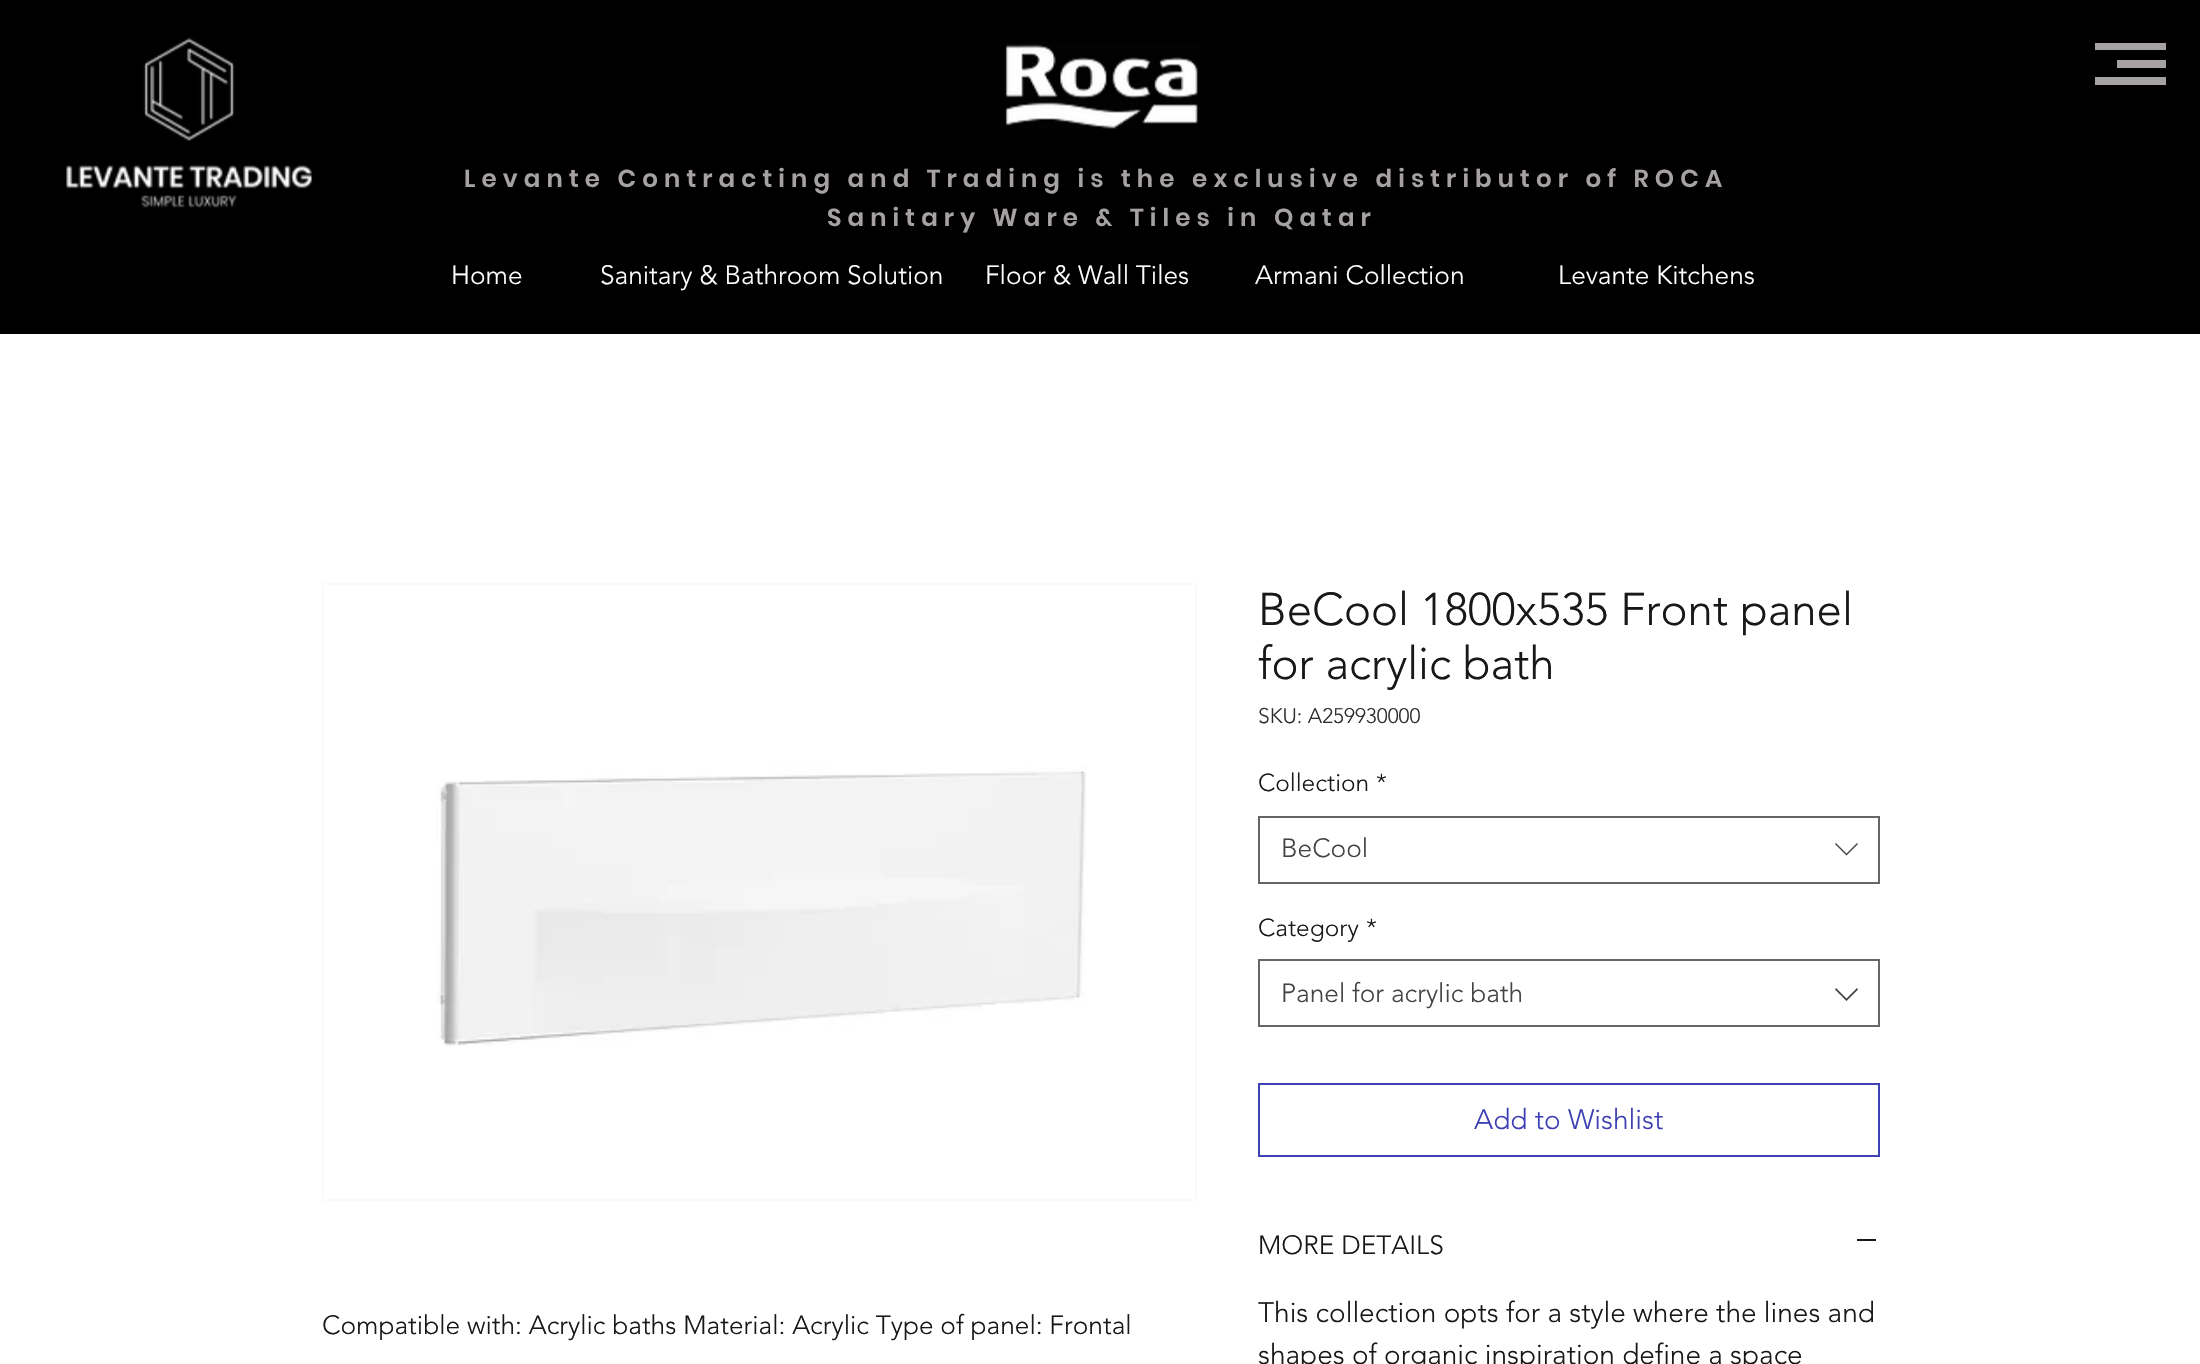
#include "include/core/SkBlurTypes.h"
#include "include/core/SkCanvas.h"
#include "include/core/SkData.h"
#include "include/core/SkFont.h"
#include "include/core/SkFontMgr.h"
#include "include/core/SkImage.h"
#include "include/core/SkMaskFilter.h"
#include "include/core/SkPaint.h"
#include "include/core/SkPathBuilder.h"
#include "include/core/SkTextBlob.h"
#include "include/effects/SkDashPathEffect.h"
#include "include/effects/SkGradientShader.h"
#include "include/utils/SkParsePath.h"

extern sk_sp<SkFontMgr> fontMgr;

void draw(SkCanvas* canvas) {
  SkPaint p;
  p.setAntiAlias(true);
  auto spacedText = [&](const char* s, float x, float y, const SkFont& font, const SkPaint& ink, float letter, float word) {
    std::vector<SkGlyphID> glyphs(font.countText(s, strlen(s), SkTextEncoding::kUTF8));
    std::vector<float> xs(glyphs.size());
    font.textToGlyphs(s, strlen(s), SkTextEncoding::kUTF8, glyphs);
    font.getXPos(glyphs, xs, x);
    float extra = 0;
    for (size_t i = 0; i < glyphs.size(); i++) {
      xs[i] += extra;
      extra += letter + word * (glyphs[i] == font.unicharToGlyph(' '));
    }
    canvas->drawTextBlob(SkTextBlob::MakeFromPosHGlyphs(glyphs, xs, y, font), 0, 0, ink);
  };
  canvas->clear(SK_ColorWHITE);
  p.setColor(SK_ColorBLACK);
  canvas->drawRect(SkRect::MakeLTRB(0, 0, 2200, 334), p);
  canvas->drawImageRect(SkImages::DeferredFromEncodedData(SkData::MakeFromFileName("images/1.png")), SkRect::MakeLTRB(66, 37, 313, 208), SkSamplingOptions());
  p.setColor(SkColorSetRGB(166, 162, 162));
  canvas->drawRect(SkRect::MakeLTRB(2095, 43, 2166, 50), p);
  canvas->drawRect(SkRect::MakeLTRB(2117, 60, 2166, 68), p);
  canvas->drawRect(SkRect::MakeLTRB(2095, 77, 2166, 85), p);
  canvas->drawImageRect(SkImages::DeferredFromEncodedData(SkData::MakeFromFileName("images/2.png")), SkRect::MakeLTRB(1005, 42, 1200, 129), SkSamplingOptions());
  p.setStyle(SkPaint::kStroke_Style);
  p.setStrokeWidth(2);
  p.setColor(SkColorSetRGB(250, 250, 250));
  canvas->drawRect(SkRect::MakeLTRB(323, 584, 1196, 1200), p);
  canvas->drawImageRect(SkImages::DeferredFromEncodedData(SkData::MakeFromFileName("images/3.png")), SkRect::MakeLTRB(436, 766, 1086, 1046), SkSamplingOptions());
  p.setColor(SkColorSetRGB(102, 102, 102));
  canvas->drawRect(SkRect::MakeLTRB(1259, 817, 1879, 883), p);
  p.setStyle(SkPaint::kFill_Style);
  p.setColor(SkColorSetRGB(68, 68, 68));
  canvas->drawPath(SkPathBuilder(SkPathFillType::kEvenOdd).moveTo(1857, 843).lineTo(1858, 844).lineTo(1846.5f, 855.5f).lineTo(1835, 844).lineTo(1836, 843).lineTo(1846.5f, 853.5f).close().detach(), p);
  p.setStyle(SkPaint::kStroke_Style);
  p.setColor(SkColorSetRGB(102, 102, 102));
  canvas->drawRect(SkRect::MakeLTRB(1259, 960, 1879, 1026), p);
  p.setStyle(SkPaint::kFill_Style);
  p.setColor(SkColorSetRGB(68, 68, 68));
  canvas->drawPath(SkPathBuilder(SkPathFillType::kEvenOdd).moveTo(1857, 988).lineTo(1858, 989.5f).lineTo(1846.5f, 1001).lineTo(1835, 989.5f).lineTo(1836, 988).lineTo(1846.5f, 998.5f).close().detach(), p);
  p.setStyle(SkPaint::kStroke_Style);
  p.setColor(SkColorSetRGB(62, 64, 179));
  canvas->drawRect(SkRect::MakeLTRB(1259, 1084, 1879, 1156), p);
  p.setStyle(SkPaint::kFill_Style);
  p.setColor(SkColorSetRGB(24, 24, 24));
  canvas->drawRect(SkRect::MakeLTRB(1857, 1239, 1876, 1241), p);
  SkFont font1(fontMgr->matchFamilyStyle("Poppins", SkFontStyle(600, SkFontStyle::kNormal_Width, SkFontStyle::kUpright_Slant)), 24.5f);
  font1.setSubpixel(true);
  p.setColor(SkColorSetRGB(166, 162, 162));
  spacedText("Levante Contracting and Trading is the exclusive distributor of ROCA", 464, 187, font1, p, 6.12f, 0);
  spacedText("Sanitary Ware & Tiles in Qatar", 827, 226, font1, p, 6.12f, 0);
  SkFont font2(fontMgr->matchFamilyStyle("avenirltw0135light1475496", SkFontStyle(300, SkFontStyle::kNormal_Width, SkFontStyle::kUpright_Slant)), 26.25f);
  font2.setSubpixel(true);
  p.setColor(SK_ColorWHITE);
  canvas->drawString("Home", 451, 284, font2, p);
  canvas->drawString("Sanitary & Bathroom Solution", 600, 284, font2, p);
  canvas->drawString("Floor & Wall Tiles", 985, 284, font2, p);
  canvas->drawString("Armani Collection", 1255, 284, font2, p);
  canvas->drawString("Levante Kitchens", 1558, 284, font2, p);
  p.setColor(SkColorSetRGB(24, 24, 24));
  canvas->drawString("Compatible with: Acrylic baths Material: Acrylic Type of panel: Frontal", 322, 1334, font2, p);
  SkFont font3(fontMgr->matchFamilyStyle("avenirltw0135light1475496", SkFontStyle(300, SkFontStyle::kNormal_Width, SkFontStyle::kUpright_Slant)), 45.5f);
  font3.setSubpixel(true);
  canvas->drawString("BeCool 1800x535 Front panel", 1258, 625, font3, p);
  canvas->drawString("for acrylic bath", 1258, 679, font3, p);
  SkFont font4(fontMgr->matchFamilyStyle("avenirltw0135light1475496", SkFontStyle(300, SkFontStyle::kNormal_Width, SkFontStyle::kUpright_Slant)), 21);
  font4.setSubpixel(true);
  p.setColor(SkColorSetRGB(46, 45, 45));
  canvas->drawString("SKU: A259930000", 1258, 723, font4, p);
  SkFont font5(fontMgr->matchFamilyStyle("avenirltw0135light1475496", SkFontStyle(300, SkFontStyle::kNormal_Width, SkFontStyle::kUpright_Slant)), 24.5f);
  font5.setSubpixel(true);
  p.setColor(SkColorSetRGB(24, 24, 24));
  canvas->drawString("Collection", 1258, 791, font5, p);
  canvas->drawString("*", 1376, 791, font5, p);
  p.setColor(SkColorSetRGB(68, 68, 68));
  canvas->drawString("BeCool", 1281, 857, font2, p);
  p.setColor(SkColorSetRGB(24, 24, 24));
  canvas->drawString("Category", 1258, 936, font5, p);
  canvas->drawString("*", 1366, 936, font5, p);
  p.setColor(SkColorSetRGB(68, 68, 68));
  canvas->drawString("Panel for acrylic bath", 1281, 1002, font2, p);
  SkFont font6(fontMgr->matchFamilyStyle("avenirltw0135light1475496", SkFontStyle(300, SkFontStyle::kNormal_Width, SkFontStyle::kUpright_Slant)), 28);
  font6.setSubpixel(true);
  p.setColor(SkColorSetRGB(62, 64, 179));
  canvas->drawString("Add to Wishlist", 1474, 1129, font6, p);
  p.setColor(SkColorSetRGB(24, 24, 24));
  canvas->drawString("MORE DETAILS", 1258, 1254, font2, p);
  canvas->drawString("This collection opts for a style where the lines and", 1258, 1322, font6, p);
  canvas->drawString("shapes of organic inspiration define a space", 1258, 1364, font6, p);
}
